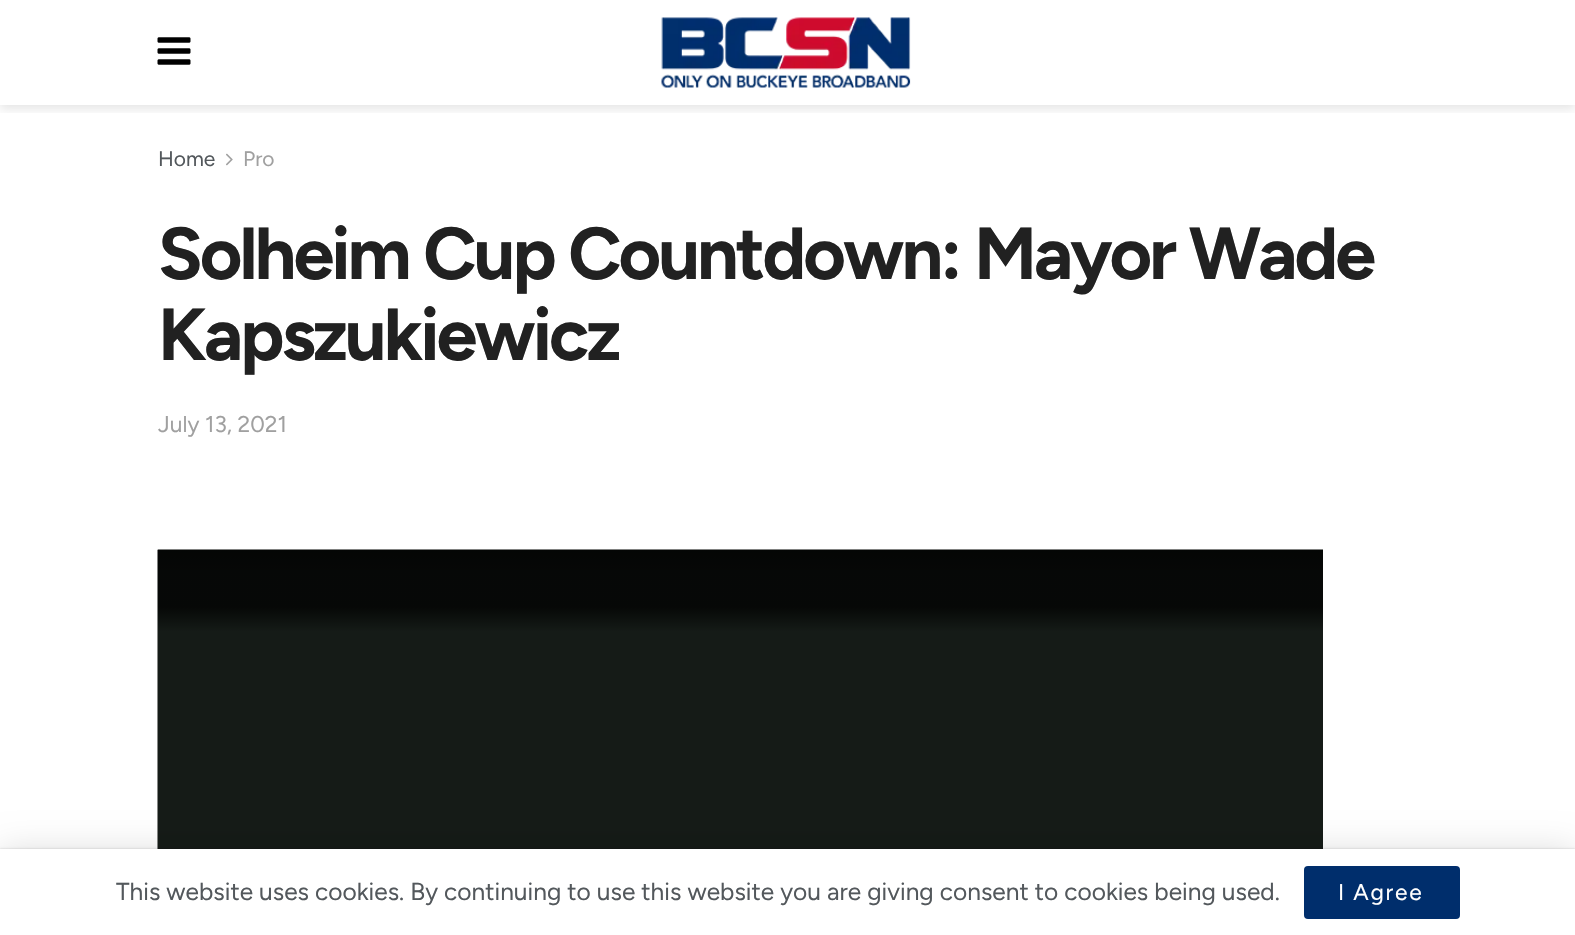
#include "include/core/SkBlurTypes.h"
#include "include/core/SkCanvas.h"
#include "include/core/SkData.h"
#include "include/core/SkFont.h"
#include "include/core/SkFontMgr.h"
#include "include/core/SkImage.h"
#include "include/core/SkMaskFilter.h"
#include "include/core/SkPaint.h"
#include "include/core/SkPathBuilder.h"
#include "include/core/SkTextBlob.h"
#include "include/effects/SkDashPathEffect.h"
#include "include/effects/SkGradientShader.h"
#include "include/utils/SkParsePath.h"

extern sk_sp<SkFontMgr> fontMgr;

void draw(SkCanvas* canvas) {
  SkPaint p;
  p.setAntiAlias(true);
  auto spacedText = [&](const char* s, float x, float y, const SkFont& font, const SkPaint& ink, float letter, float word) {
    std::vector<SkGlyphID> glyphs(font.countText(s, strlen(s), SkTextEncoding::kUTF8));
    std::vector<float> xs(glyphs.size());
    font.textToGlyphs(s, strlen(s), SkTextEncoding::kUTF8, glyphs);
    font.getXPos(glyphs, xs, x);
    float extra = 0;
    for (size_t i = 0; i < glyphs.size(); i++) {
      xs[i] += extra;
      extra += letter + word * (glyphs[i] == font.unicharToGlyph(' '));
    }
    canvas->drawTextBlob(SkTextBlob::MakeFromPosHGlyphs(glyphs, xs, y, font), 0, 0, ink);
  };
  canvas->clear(SK_ColorWHITE);
  canvas->save();
  canvas->clipRect(SkRect::MakeLTRB(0, 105, 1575, 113));
  p.setColor(SkColorSetARGB(26, 0, 0, 0));
  p.setMaskFilter(SkMaskFilter::MakeBlur(kNormal_SkBlurStyle, 5));
  canvas->drawRect(SkRect::MakeLTRB(0, 4, 1575, 109), p);
  p.setMaskFilter(nullptr);
  canvas->restore();
  canvas->drawImageRect(SkImages::DeferredFromEncodedData(SkData::MakeFromFileName("images/1.png")), SkRect::MakeLTRB(157, 37, 191, 65), SkSamplingOptions());
  canvas->drawImageRect(SkImages::DeferredFromEncodedData(SkData::MakeFromFileName("images/2.png")), SkRect::MakeLTRB(661, 17, 911, 88), SkSamplingOptions());
  canvas->drawImageRect(SkImages::DeferredFromEncodedData(SkData::MakeFromFileName("images/3.png")), SkRect::MakeLTRB(226, 153, 233, 166), SkSamplingOptions());
  canvas->drawImageRect(SkImages::DeferredFromEncodedData(SkData::MakeFromFileName("images/4.png")), SkRect::MakeLTRB(157, 549, 1323, 849), SkSamplingOptions());
  p.setColor(SkColorSetARGB(38, 0, 0, 0));
  p.setMaskFilter(SkMaskFilter::MakeBlur(kNormal_SkBlurStyle, 17.5f));
  canvas->drawRect(SkRect::MakeLTRB(0, 852, 1575, 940), p);
  p.setMaskFilter(nullptr);
  p.setColor(SkColorSetARGB(51, 0, 0, 0));
  p.setMaskFilter(SkMaskFilter::MakeBlur(kNormal_SkBlurStyle, 1));
  canvas->drawRect(SkRect::MakeLTRB(0, 849, 1575, 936), p);
  p.setMaskFilter(nullptr);
  p.setColor(SK_ColorWHITE);
  canvas->drawRect(SkRect::MakeLTRB(0, 849, 1575, 935), p);
  p.setColor(SkColorSetRGB(0, 46, 108));
  canvas->drawRoundRect(SkRect::MakeLTRB(1304, 866, 1460, 919), 4, 4, p);
  SkFont font1(fontMgr->matchFamilyStyle("Figtree", SkFontStyle::Normal()), 21);
  font1.setSubpixel(true);
  p.setColor(SkColorSetRGB(83, 88, 92));
  canvas->drawString("Home", 158, 166, font1, p);
  p.setColor(SkColorSetRGB(160, 160, 160));
  canvas->drawString("Pro", 243, 166, font1, p);
  SkFont font2(fontMgr->matchFamilyStyle("Figtree", SkFontStyle::Bold()), 73.5f);
  font2.setSubpixel(true);
  p.setColor(SkColorSetRGB(33, 33, 33));
  spacedText("Solheim Cup Countdown: Mayor Wade", 158, 279, font2, p, -2.95f, 0);
  spacedText("Kapszukiewicz", 158, 360, font2, p, -2.95f, 0);
  SkFont font3(fontMgr->matchFamilyStyle("Figtree", SkFontStyle::Normal()), 22.75f);
  font3.setSubpixel(true);
  p.setColor(SkColorSetRGB(160, 160, 160));
  canvas->drawString("July 13, 2021", 158, 432, font3, p);
  SkFont font4(fontMgr->matchFamilyStyle("Figtree", SkFontStyle::Normal()), 24.5f);
  font4.setSubpixel(true);
  p.setColor(SkColorSetRGB(83, 88, 92));
  canvas->drawString("This website uses cookies. By continuing to use this website you are giving consent to cookies being used.", 116, 900, font4, p);
  p.setColor(SK_ColorWHITE);
  spacedText("I Agree", 1338, 900, font3, p, 1.75f, 0);
}
